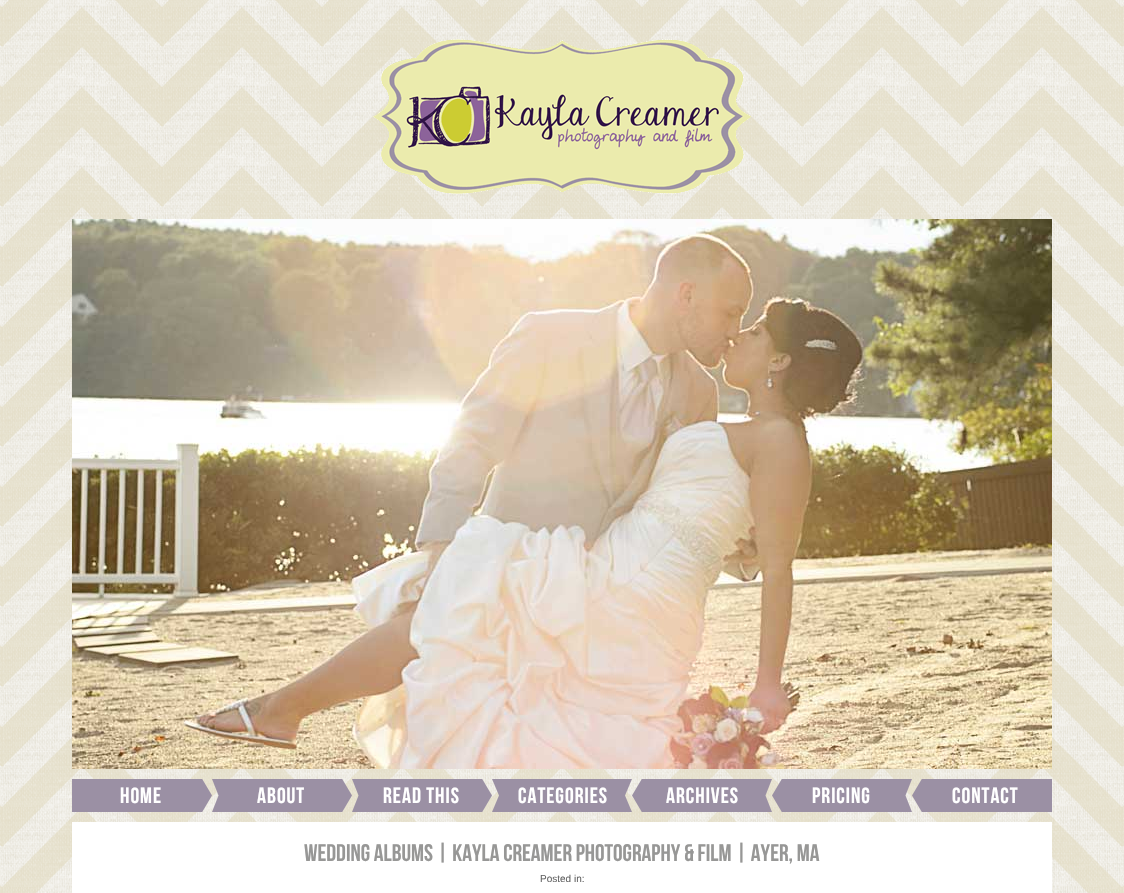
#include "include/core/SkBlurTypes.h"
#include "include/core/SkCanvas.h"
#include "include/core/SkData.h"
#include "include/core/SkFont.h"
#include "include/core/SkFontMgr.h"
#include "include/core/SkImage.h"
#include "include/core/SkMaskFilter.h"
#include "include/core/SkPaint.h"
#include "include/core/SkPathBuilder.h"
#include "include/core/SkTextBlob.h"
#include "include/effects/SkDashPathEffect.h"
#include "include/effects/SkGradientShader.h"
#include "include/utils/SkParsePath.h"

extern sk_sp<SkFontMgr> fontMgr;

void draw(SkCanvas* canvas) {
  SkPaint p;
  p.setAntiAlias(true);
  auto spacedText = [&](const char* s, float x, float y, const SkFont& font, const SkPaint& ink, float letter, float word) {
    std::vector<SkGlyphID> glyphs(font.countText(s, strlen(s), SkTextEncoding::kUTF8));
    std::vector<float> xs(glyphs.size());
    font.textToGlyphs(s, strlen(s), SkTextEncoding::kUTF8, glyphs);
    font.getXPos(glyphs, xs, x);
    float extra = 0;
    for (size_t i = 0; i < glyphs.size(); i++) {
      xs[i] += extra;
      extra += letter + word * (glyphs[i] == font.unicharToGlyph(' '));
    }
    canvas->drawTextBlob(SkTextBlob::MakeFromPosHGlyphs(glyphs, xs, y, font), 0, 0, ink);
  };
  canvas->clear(SK_ColorWHITE);
  canvas->drawImageRect(SkImages::DeferredFromEncodedData(SkData::MakeFromFileName("images/1.png")), SkRect::MakeLTRB(0, 0, 1124, 893), SkSamplingOptions());
  canvas->drawImageRect(SkImages::DeferredFromEncodedData(SkData::MakeFromFileName("images/2.png")), SkRect::MakeLTRB(373, 39, 751, 194), SkSamplingOptions());
  canvas->drawImageRect(SkImages::DeferredFromEncodedData(SkData::MakeFromFileName("images/3.png")), SkRect::MakeLTRB(72, 219, 1052, 769), SkSamplingOptions());
  canvas->drawImageRect(SkImages::DeferredFromEncodedData(SkData::MakeFromFileName("images/4.png")), SkRect::MakeLTRB(72, 779, 212, 812), SkSamplingOptions());
  canvas->drawImageRect(SkImages::DeferredFromEncodedData(SkData::MakeFromFileName("images/5.png")), SkRect::MakeLTRB(212, 779, 352, 812), SkSamplingOptions());
  canvas->drawImageRect(SkImages::DeferredFromEncodedData(SkData::MakeFromFileName("images/6.png")), SkRect::MakeLTRB(352, 779, 492, 812), SkSamplingOptions());
  canvas->drawImageRect(SkImages::DeferredFromEncodedData(SkData::MakeFromFileName("images/7.png")), SkRect::MakeLTRB(492, 779, 632, 812), SkSamplingOptions());
  canvas->drawImageRect(SkImages::DeferredFromEncodedData(SkData::MakeFromFileName("images/8.png")), SkRect::MakeLTRB(632, 779, 772, 812), SkSamplingOptions());
  canvas->drawImageRect(SkImages::DeferredFromEncodedData(SkData::MakeFromFileName("images/9.png")), SkRect::MakeLTRB(772, 779, 912, 812), SkSamplingOptions());
  canvas->drawImageRect(SkImages::DeferredFromEncodedData(SkData::MakeFromFileName("images/10.png")), SkRect::MakeLTRB(912, 779, 1052, 812), SkSamplingOptions());
  p.setColor(SK_ColorWHITE);
  canvas->drawRect(SkRect::MakeLTRB(72, 822, 1052, 893), p);
  SkFont font1(fontMgr->matchFamilyStyle("Bebas Neue", SkFontStyle::Normal()), 22);
  font1.setSubpixel(true);
  spacedText("HOME", 120, 803, font1, p, 1, 0);
  spacedText("About", 257, 803, font1, p, 1, 0);
  spacedText("Read This", 383, 803, font1, p, 1, 0);
  spacedText("Categories", 518, 803, font1, p, 1, 0);
  spacedText("Archives", 666, 803, font1, p, 1, 0);
  spacedText("Pricing", 812, 803, font1, p, 1, 0);
  spacedText("Contact", 952, 803, font1, p, 1, 0);
  SkFont font2(fontMgr->matchFamilyStyle("Bebas Neue", SkFontStyle::Normal()), 24);
  font2.setSubpixel(true);
  p.setColor(SkColorSetRGB(151, 151, 150));
  canvas->drawString("WEDDING ALBUMS | KAYLA CREAMER PHOTOGRAPHY & FILM | AYER, MA", 304, 861, font2, p);
  SkFont font3(fontMgr->matchFamilyStyle("Liberation Sans", SkFontStyle::Normal()), 10);
  font3.setSubpixel(true);
  p.setColor(SkColorSetRGB(99, 99, 99));
  canvas->drawString("Posted in:", 540, 882, font3, p);
}
